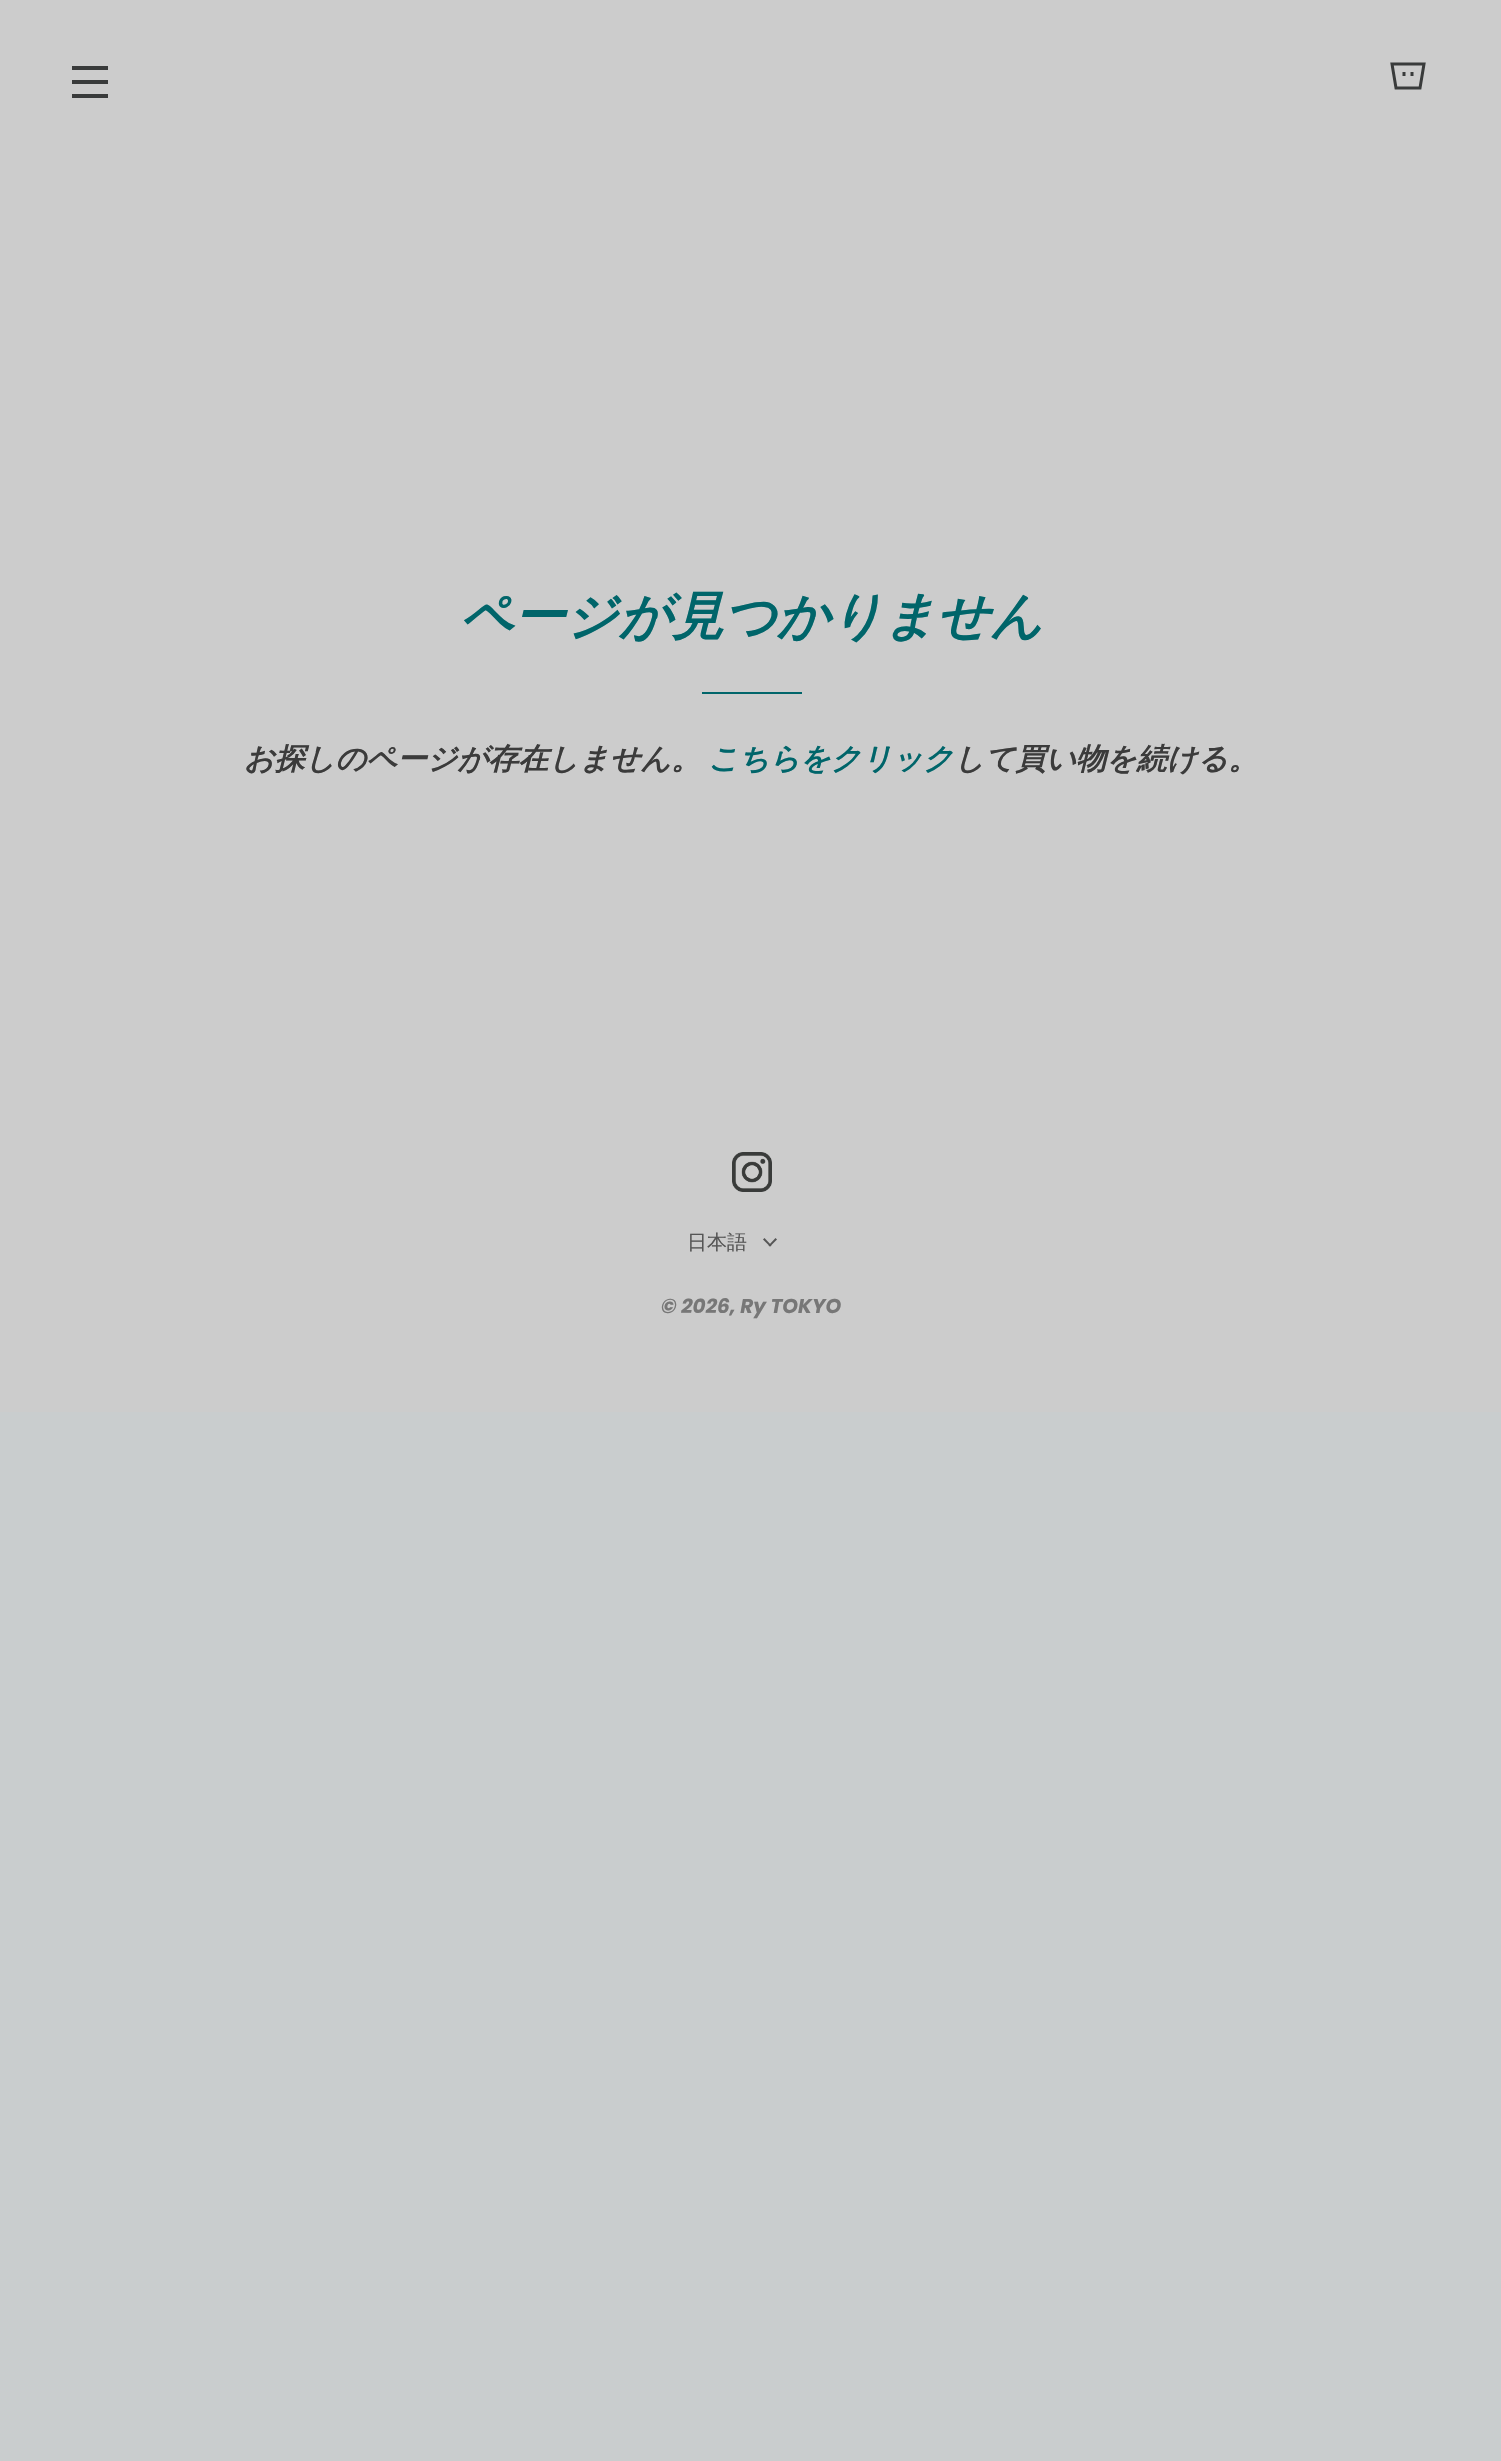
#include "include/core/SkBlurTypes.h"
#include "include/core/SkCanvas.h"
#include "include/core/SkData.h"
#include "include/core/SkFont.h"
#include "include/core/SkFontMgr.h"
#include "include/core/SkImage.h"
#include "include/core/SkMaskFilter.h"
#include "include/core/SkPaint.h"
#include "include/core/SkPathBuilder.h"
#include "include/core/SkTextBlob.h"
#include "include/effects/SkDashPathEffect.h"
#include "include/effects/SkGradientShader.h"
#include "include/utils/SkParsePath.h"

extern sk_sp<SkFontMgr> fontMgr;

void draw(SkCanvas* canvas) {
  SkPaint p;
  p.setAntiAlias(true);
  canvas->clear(SkColorSetRGB(201, 205, 206));
  p.setColor(SkColorSetRGB(204, 204, 204));
  canvas->drawRect(SkRect::MakeLTRB(0, 0, 1501, 1412), p);
  p.setColor(SkColorSetRGB(57, 59, 59));
  canvas->drawRect(SkRect::MakeLTRB(72, 66, 108, 70), p);
  canvas->drawRect(SkRect::MakeLTRB(72, 80, 108, 84), p);
  canvas->drawRect(SkRect::MakeLTRB(72, 94, 108, 98), p);
  p.setStyle(SkPaint::kStroke_Style);
  p.setStrokeWidth(3);
  canvas->drawPath(SkPathBuilder().moveTo(1392, 64).lineTo(1424, 64).lineTo(1420, 88).lineTo(1396, 88).close().moveTo(1404, 72).lineTo(1404, 76).moveTo(1412, 72).lineTo(1412, 76).detach(), p);
  p.setStyle(SkPaint::kFill_Style);
  p.setColor(SkColorSetRGB(0, 101, 106));
  canvas->drawRect(SkRect::MakeLTRB(702, 692, 802, 694), p);
  canvas->drawImageRect(SkImages::DeferredFromEncodedData(SkData::MakeFromFileName("images/1.png")), SkRect::MakeLTRB(732, 1152, 772, 1192), SkSamplingOptions());
  p.setColor(SkColorSetRGB(85, 85, 85));
  canvas->drawPath(SkPathBuilder().moveTo(775.5f, 1238).lineTo(777, 1239.5f).lineTo(770, 1246.5f).lineTo(768.5f, 1245.5f).close().detach(), p);
  canvas->drawPath(SkPathBuilder().moveTo(764.5f, 1238).lineTo(771.5f, 1245.5f).lineTo(770, 1246.5f).lineTo(763, 1239.5f).close().detach(), p);
  SkFont font1(fontMgr->matchFamilyStyle("WenQuanYi Zen Hei", SkFontStyle::BoldItalic()), 52);
  font1.setSubpixel(true);
  p.setColor(SkColorSetRGB(0, 101, 106));
  canvas->drawString("ページが見つかりません", 460, 634, font1, p);
  SkFont font2(fontMgr->matchFamilyStyle("WenQuanYi Zen Hei", SkFontStyle::BoldItalic()), 30);
  font2.setSubpixel(true);
  p.setColor(SkColorSetRGB(59, 59, 59));
  canvas->drawString("お探しのページが存在しません。", 244, 769, font2, p);
  p.setColor(SkColorSetRGB(0, 101, 106));
  canvas->drawString("こちらをクリック", 708, 769, font2, p);
  p.setColor(SkColorSetRGB(59, 59, 59));
  canvas->drawString("して買い物を続ける。", 954, 769, font2, p);
  SkFont font3(fontMgr->matchFamilyStyle("WenQuanYi Zen Hei", SkFontStyle(500, SkFontStyle::kNormal_Width, SkFontStyle::kUpright_Slant)), 20);
  font3.setSubpixel(true);
  p.setColor(SkColorSetRGB(85, 85, 85));
  canvas->drawString("日本語", 687, 1249, font3, p);
  SkFont font4(fontMgr->matchFamilyStyle("Poppins", SkFontStyle::BoldItalic()), 20);
  font4.setSubpixel(true);
  p.setColor(SkColorSetRGB(119, 119, 119));
  canvas->drawString("© 2026, Ry TOKYO", 661, 1313, font4, p);
}
